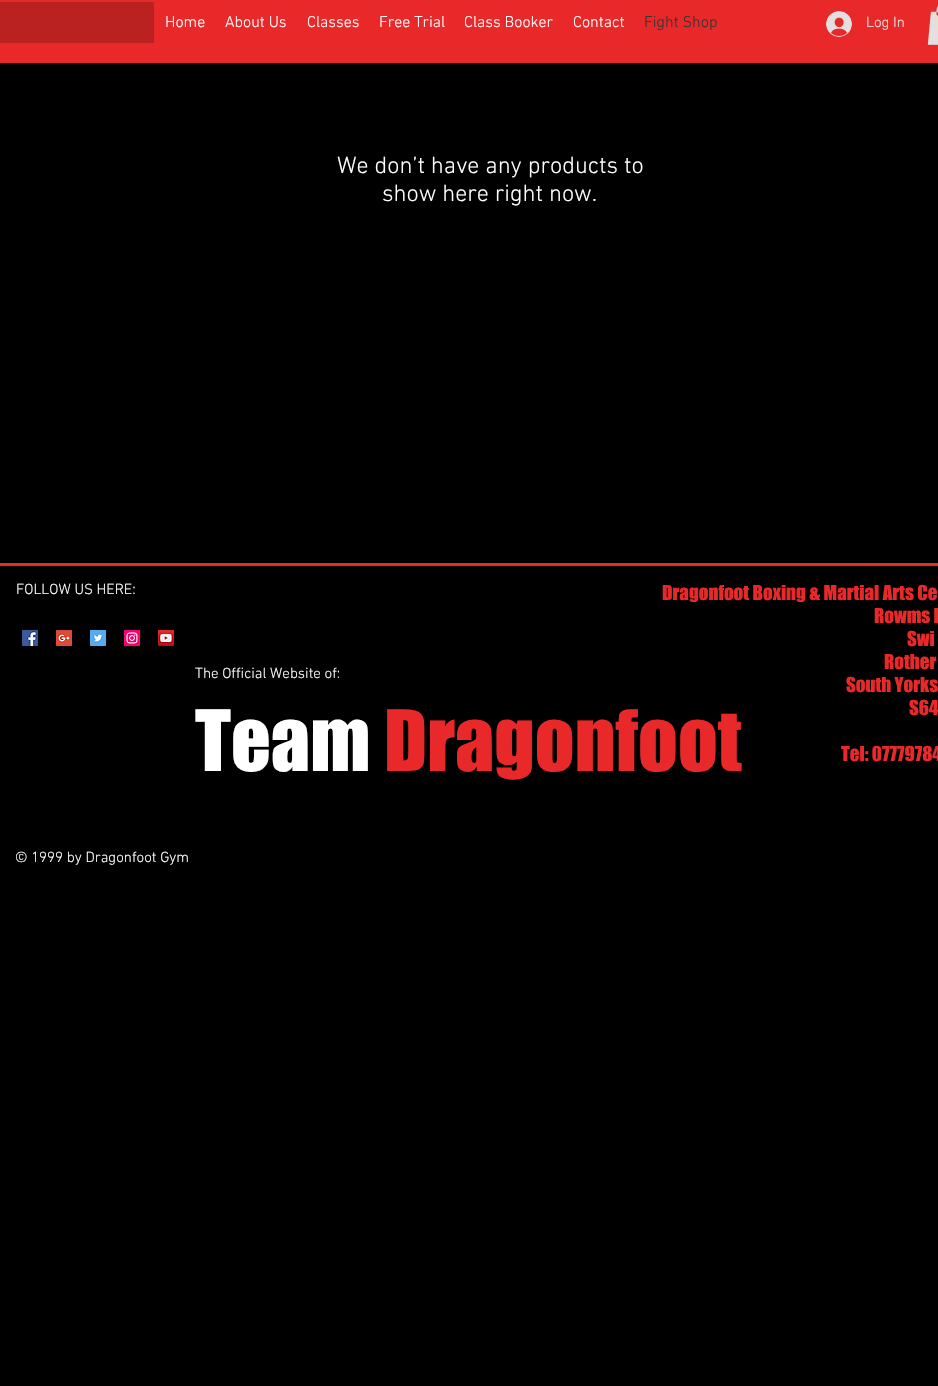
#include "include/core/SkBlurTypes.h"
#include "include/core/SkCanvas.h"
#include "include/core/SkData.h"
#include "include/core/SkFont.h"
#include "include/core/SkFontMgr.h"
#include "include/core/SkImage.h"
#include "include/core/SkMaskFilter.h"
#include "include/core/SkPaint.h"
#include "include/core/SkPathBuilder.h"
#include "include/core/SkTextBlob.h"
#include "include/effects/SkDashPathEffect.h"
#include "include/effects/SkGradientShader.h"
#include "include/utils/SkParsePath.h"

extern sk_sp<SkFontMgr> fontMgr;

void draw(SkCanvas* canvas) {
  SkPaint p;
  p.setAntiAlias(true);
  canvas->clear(SK_ColorBLACK);
  p.setColor(SkColorSetRGB(233, 41, 41));
  canvas->drawRect(SkRect::MakeLTRB(0, 0, 938, 63), p);
  p.setColor(SkColorSetRGB(186, 33, 33));
  canvas->drawRect(SkRect::MakeLTRB(0, 2, 154, 43), p);
  canvas->drawImageRect(SkImages::DeferredFromEncodedData(SkData::MakeFromFileName("images/1.png")), SkRect::MakeLTRB(826, 11, 852, 37), SkSamplingOptions());
  canvas->drawImageRect(SkImages::DeferredFromEncodedData(SkData::MakeFromFileName("images/2.png")), SkRect::MakeLTRB(927, 6, 938, 45), SkSamplingOptions());
  p.setColor(SkColorSetRGB(233, 41, 41));
  canvas->drawRect(SkRect::MakeLTRB(0, 563, 938, 566), p);
  canvas->drawImageRect(SkImages::DeferredFromEncodedData(SkData::MakeFromFileName("images/3.png")), SkRect::MakeLTRB(22, 630, 38, 646), SkSamplingOptions());
  canvas->drawImageRect(SkImages::DeferredFromEncodedData(SkData::MakeFromFileName("images/4.png")), SkRect::MakeLTRB(56, 630, 72, 646), SkSamplingOptions());
  canvas->drawImageRect(SkImages::DeferredFromEncodedData(SkData::MakeFromFileName("images/5.png")), SkRect::MakeLTRB(90, 630, 106, 646), SkSamplingOptions());
  canvas->drawImageRect(SkImages::DeferredFromEncodedData(SkData::MakeFromFileName("images/6.png")), SkRect::MakeLTRB(124, 630, 140, 646), SkSamplingOptions());
  canvas->drawImageRect(SkImages::DeferredFromEncodedData(SkData::MakeFromFileName("images/7.png")), SkRect::MakeLTRB(158, 630, 174, 646), SkSamplingOptions());
  SkFont font1(fontMgr->matchFamilyStyle("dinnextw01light", SkFontStyle(300, SkFontStyle::kNormal_Width, SkFontStyle::kUpright_Slant)), 16);
  font1.setSubpixel(true);
  p.setColor(SK_ColorWHITE);
  canvas->drawString("Home", 165, 27, font1, p);
  canvas->drawString("About Us", 225, 27, font1, p);
  canvas->drawString("Classes", 307, 27, font1, p);
  canvas->drawString("Free Trial", 379, 27, font1, p);
  canvas->drawString("Class Booker", 464, 27, font1, p);
  canvas->drawString("Contact", 573, 27, font1, p);
  p.setColor(SkColorSetRGB(51, 51, 51));
  canvas->drawString("Fight Shop", 644, 27, font1, p);
  SkFont font2(fontMgr->matchFamilyStyle("dinnextw01light", SkFontStyle(300, SkFontStyle::kNormal_Width, SkFontStyle::kUpright_Slant)), 15);
  font2.setSubpixel(true);
  p.setColor(SkColorSetRGB(229, 224, 224));
  canvas->drawString("Log In", 866, 27, font2, p);
  SkFont font3(fontMgr->matchFamilyStyle("dinnextw01light", SkFontStyle(300, SkFontStyle::kNormal_Width, SkFontStyle::kUpright_Slant)), 24);
  font3.setSubpixel(true);
  p.setColor(SK_ColorWHITE);
  canvas->drawString("We don’t have any products to", 337, 173, font3, p);
  canvas->drawString("show here right now.", 382, 201, font3, p);
  canvas->drawString("FOLLOW US HERE:", 16, 594, font2, p);
  SkFont font4(fontMgr->matchFamilyStyle("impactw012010", SkFontStyle::Normal()), 19);
  font4.setSubpixel(true);
  p.setColor(SkColorSetRGB(233, 41, 41));
  canvas->drawString("Dragonfoot Boxing & Martial Arts Ce", 662, 600, font4, p);
  canvas->drawString("Rowms L", 874, 623, font4, p);
  canvas->drawString("Swi", 907, 646, font4, p);
  canvas->drawString("Rother", 884, 669, font4, p);
  canvas->drawString("South Yorks", 846, 692, font4, p);
  canvas->drawString("S64", 909, 715, font4, p);
  canvas->drawString("Tel: 07779784", 841, 761, font4, p);
  p.setColor(SK_ColorWHITE);
  canvas->drawString("The Official Website of:", 195, 678, font2, p);
  SkFont font5(fontMgr->matchFamilyStyle("impactw012010", SkFontStyle::Normal()), 78);
  font5.setSubpixel(true);
  canvas->drawString("Team", 195, 771, font5, p);
  p.setColor(SkColorSetRGB(233, 41, 41));
  canvas->drawString("Dragonfoot", 384, 771, font5, p);
  p.setColor(SK_ColorWHITE);
  canvas->drawString("© 1999 by Dragonfoot Gym", 15, 862, font2, p);
}
